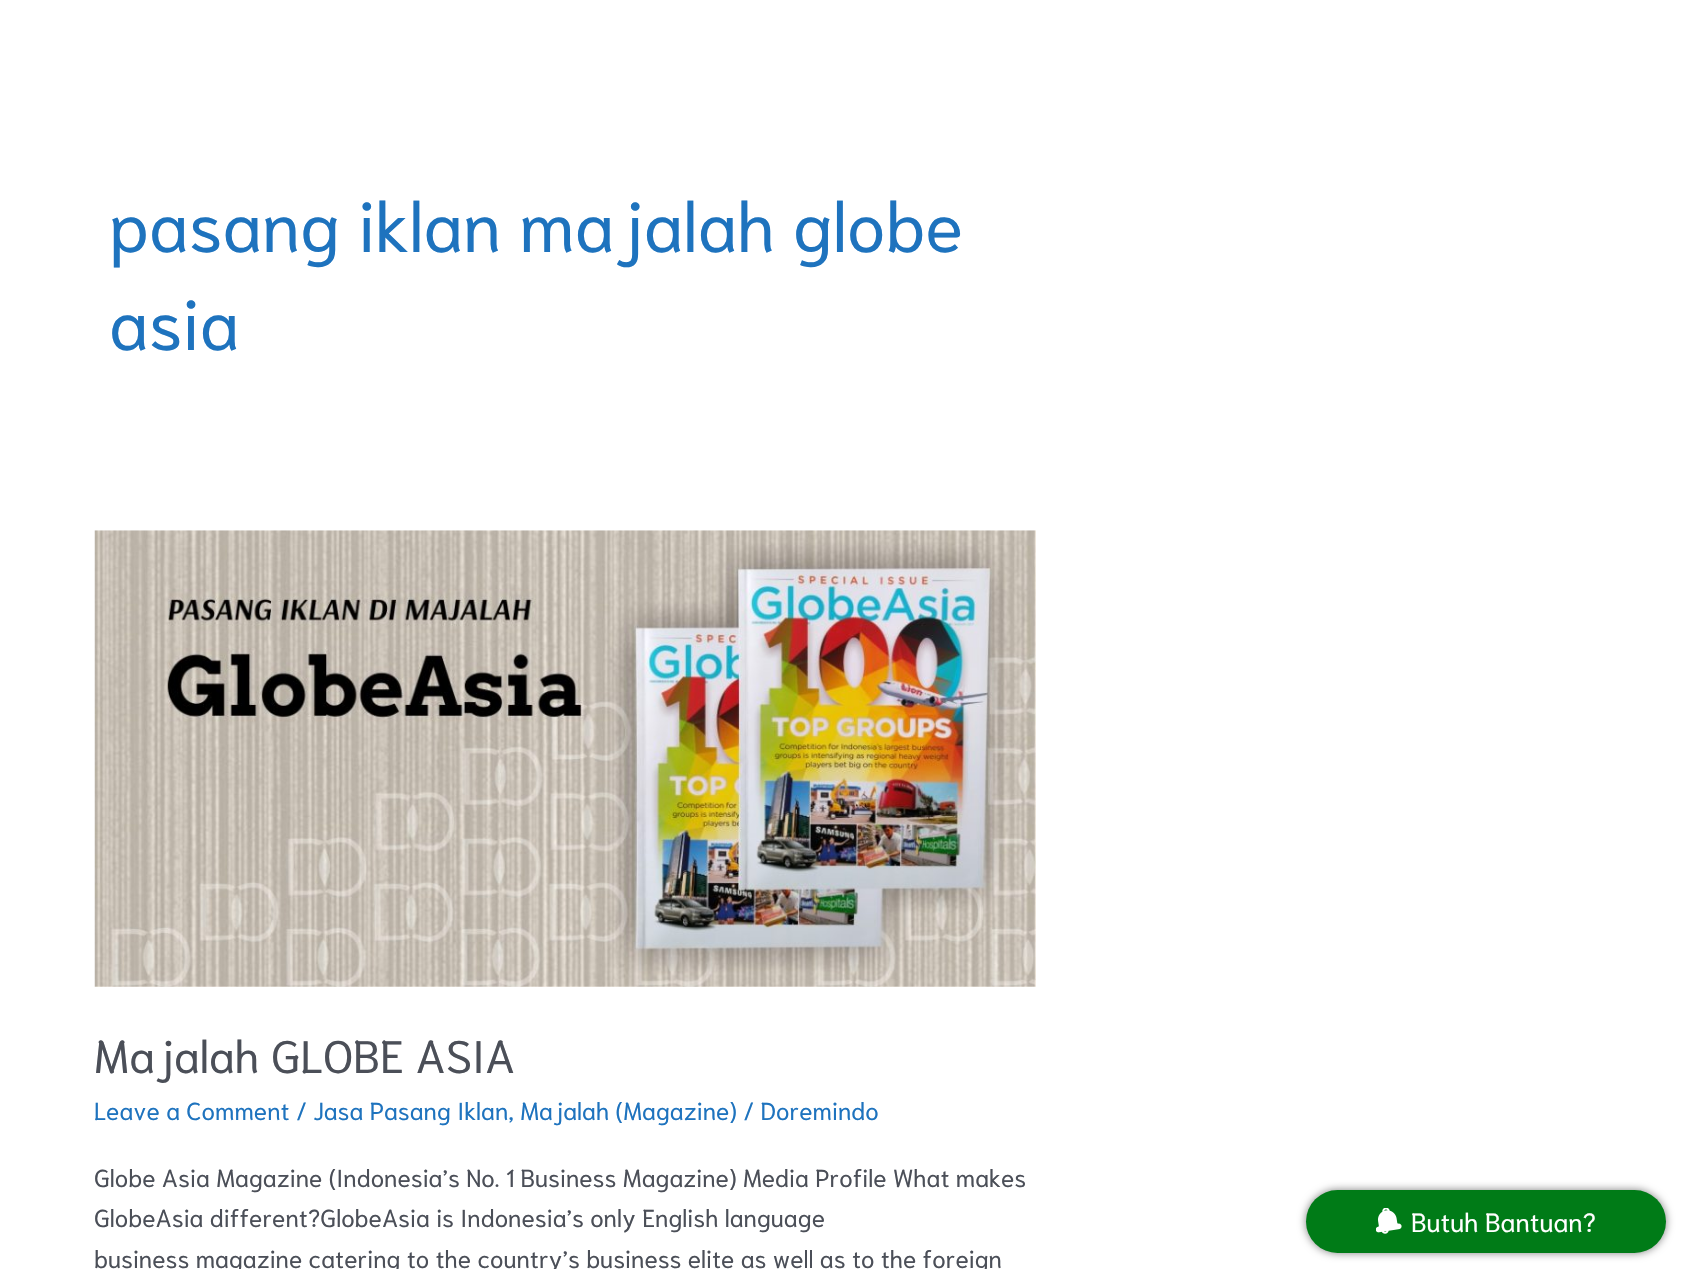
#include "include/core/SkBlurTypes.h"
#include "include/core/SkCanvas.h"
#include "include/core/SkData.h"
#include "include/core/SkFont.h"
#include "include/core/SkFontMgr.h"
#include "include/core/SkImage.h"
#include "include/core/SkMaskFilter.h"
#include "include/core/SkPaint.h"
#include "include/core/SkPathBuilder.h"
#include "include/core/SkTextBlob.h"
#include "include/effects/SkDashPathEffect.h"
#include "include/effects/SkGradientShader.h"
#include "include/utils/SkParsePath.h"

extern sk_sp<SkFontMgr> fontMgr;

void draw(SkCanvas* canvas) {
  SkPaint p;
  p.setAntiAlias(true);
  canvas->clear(SK_ColorWHITE);
  canvas->drawImageRect(SkImages::DeferredFromEncodedData(SkData::MakeFromFileName("images/1.png")), SkRect::MakeLTRB(94, 530, 1036, 987), SkSamplingOptions());
  p.setColor(SkColorSetARGB(128, 0, 0, 0));
  p.setMaskFilter(SkMaskFilter::MakeBlur(kNormal_SkBlurStyle, 4.5f));
  canvas->drawRoundRect(SkRect::MakeLTRB(1306, 1190, 1666, 1253), 31.5f, 31.5f, p);
  p.setMaskFilter(nullptr);
  p.setColor(SkColorSetRGB(0, 123, 23));
  canvas->drawRoundRect(SkRect::MakeLTRB(1306, 1190, 1666, 1253), 31.5f, 31.5f, p);
  canvas->drawImageRect(SkImages::DeferredFromEncodedData(SkData::MakeFromFileName("images/2.png")), SkRect::MakeLTRB(1376, 1208, 1402, 1234), SkSamplingOptions());
  SkFont font1(fontMgr->matchFamilyStyle("Niramit", SkFontStyle::Normal()), 70);
  font1.setSubpixel(true);
  p.setColor(SkColorSetRGB(30, 115, 190));
  canvas->drawString("pasang iklan majalah globe", 109, 252, font1, p);
  canvas->drawString("asia", 109, 350, font1, p);
  SkFont font2(fontMgr->matchFamilyStyle("Niramit", SkFontStyle::Normal()), 45.5f);
  font2.setSubpixel(true);
  p.setColor(SkColorSetRGB(75, 79, 88));
  canvas->drawString("Majalah GLOBE ASIA", 94, 1073, font2, p);
  SkFont font3(fontMgr->matchFamilyStyle("Niramit", SkFontStyle::Normal()), 24.5f);
  font3.setSubpixel(true);
  p.setColor(SkColorSetRGB(30, 115, 190));
  canvas->drawString("Leave a Comment / Jasa Pasang Iklan, Majalah (Magazine) / Doremindo", 94, 1120, font3, p);
  p.setColor(SkColorSetRGB(75, 79, 88));
  canvas->drawString("Globe Asia Magazine (Indonesia’s No. 1 Business Magazine) Media Profile What makes", 94, 1187, font3, p);
  canvas->drawString("GlobeAsia different?GlobeAsia is Indonesia’s only English language", 94, 1227, font3, p);
  canvas->drawString("business magazine catering to the country’s business elite as well as to the foreign", 94, 1268, font3, p);
  SkFont font4(fontMgr->matchFamilyStyle("Niramit", SkFontStyle::Normal()), 26.25f);
  font4.setSubpixel(true);
  p.setColor(SK_ColorWHITE);
  canvas->drawString("Butuh Bantuan?", 1411, 1232, font4, p);
}
